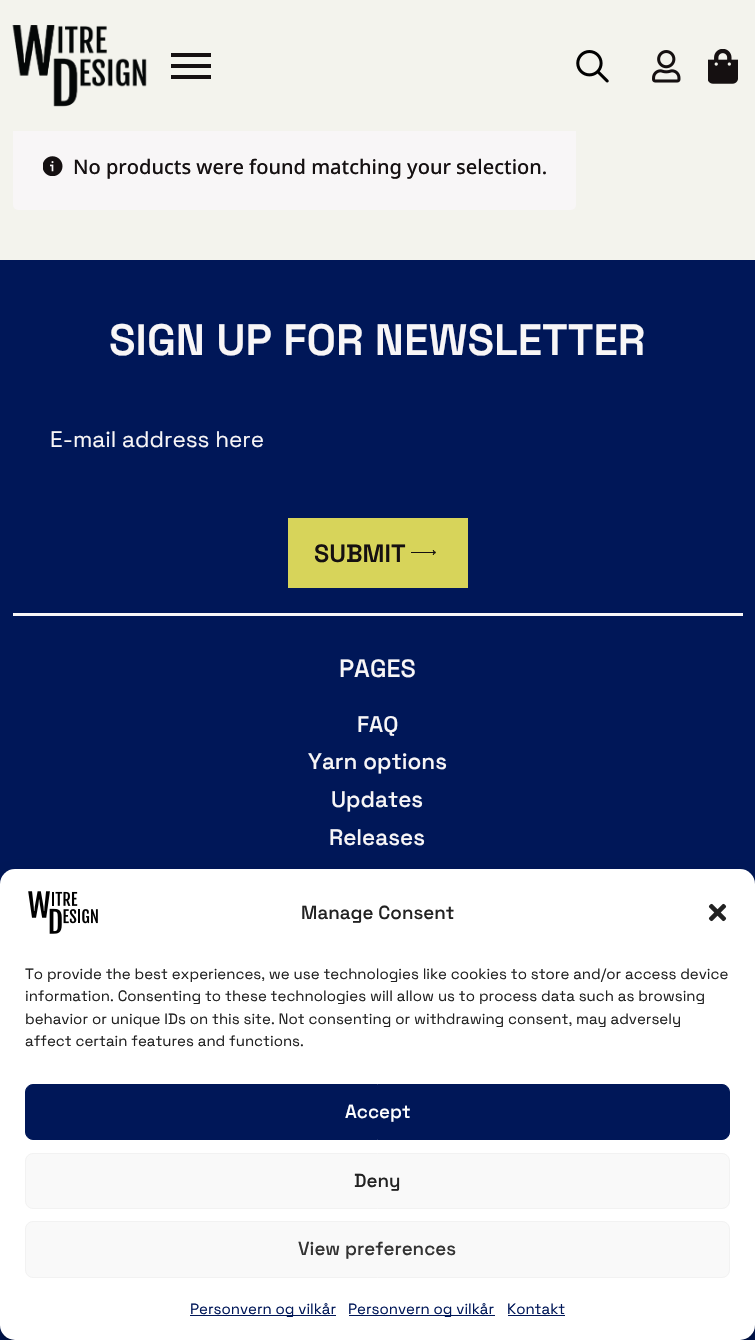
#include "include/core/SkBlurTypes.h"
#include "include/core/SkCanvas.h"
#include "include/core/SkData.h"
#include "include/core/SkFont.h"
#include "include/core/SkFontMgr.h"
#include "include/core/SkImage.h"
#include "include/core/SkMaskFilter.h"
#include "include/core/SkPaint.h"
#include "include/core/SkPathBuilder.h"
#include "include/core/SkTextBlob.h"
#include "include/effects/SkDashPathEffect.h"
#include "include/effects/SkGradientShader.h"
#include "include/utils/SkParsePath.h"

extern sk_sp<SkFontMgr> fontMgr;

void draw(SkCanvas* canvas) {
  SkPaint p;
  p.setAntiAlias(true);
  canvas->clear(SkColorSetRGB(243, 243, 237));
  p.setColor(SkColorSetRGB(248, 246, 247));
  canvas->drawRoundRect(SkRect::MakeLTRB(13, 123, 576, 210), 5, 5, p);
  p.setColor(SkColorSetRGB(243, 243, 237));
  canvas->drawRect(SkRect::MakeLTRB(13, 123, 576, 131), p);
  canvas->drawImageRect(SkImages::DeferredFromEncodedData(SkData::MakeFromFileName("images/1.png")), SkRect::MakeLTRB(12, 25, 147, 107), SkSamplingOptions());
  p.setColor(SkColorSetRGB(21, 16, 17));
  canvas->drawRect(SkRect::MakeLTRB(171, 64, 211, 68), p);
  canvas->drawRect(SkRect::MakeLTRB(171, 53, 211, 57), p);
  canvas->drawRect(SkRect::MakeLTRB(171, 75, 211, 79), p);
  canvas->drawImageRect(SkImages::DeferredFromEncodedData(SkData::MakeFromFileName("images/2.png")), SkRect::MakeLTRB(576, 50, 609, 83), SkSamplingOptions());
  canvas->drawImageRect(SkImages::DeferredFromEncodedData(SkData::MakeFromFileName("images/3.png")), SkRect::MakeLTRB(652, 50, 681, 83), SkSamplingOptions());
  canvas->drawImageRect(SkImages::DeferredFromEncodedData(SkData::MakeFromFileName("images/4.png")), SkRect::MakeLTRB(708, 49, 738, 84), SkSamplingOptions());
  canvas->drawImageRect(SkImages::DeferredFromEncodedData(SkData::MakeFromFileName("images/5.png")), SkRect::MakeLTRB(43, 156, 63, 176), SkSamplingOptions());
  p.setColor(SkColorSetRGB(0, 23, 88));
  canvas->drawRect(SkRect::MakeLTRB(0, 260, 755, 1340), p);
  p.setColor(SkColorSetRGB(248, 246, 247));
  canvas->drawRect(SkRect::MakeLTRB(13, 613, 743, 616), p);
  p.setColor(SkColorSetRGB(215, 212, 90));
  canvas->drawRect(SkRect::MakeLTRB(288, 518, 468, 588), p);
  canvas->drawImageRect(SkImages::DeferredFromEncodedData(SkData::MakeFromFileName("images/6.png")), SkRect::MakeLTRB(411, 550, 436, 555), SkSamplingOptions());
  p.setColor(SkColorSetARGB(59, 0, 0, 0));
  p.setMaskFilter(SkMaskFilter::MakeBlur(kNormal_SkBlurStyle, 4));
  canvas->drawRoundRect(SkRect::MakeLTRB(0, 876, 755, 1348), 15, 15, p);
  p.setMaskFilter(nullptr);
  p.setColor(SkColorSetARGB(48, 0, 0, 0));
  p.setMaskFilter(SkMaskFilter::MakeBlur(kNormal_SkBlurStyle, 12.5f));
  canvas->drawRoundRect(SkRect::MakeLTRB(0, 881, 755, 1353), 15, 15, p);
  p.setMaskFilter(nullptr);
  p.setColor(SkColorSetRGB(128, 128, 128));
  p.setMaskFilter(SkMaskFilter::MakeBlur(kNormal_SkBlurStyle, 3));
  canvas->drawRoundRect(SkRect::MakeLTRB(668, 1248, 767, 1323), 2.5f, 2.5f, p);
  p.setMaskFilter(nullptr);
  p.setColor(SK_ColorWHITE);
  canvas->drawRoundRect(SkRect::MakeLTRB(0, 869, 755, 1340), 15, 15, p);
  canvas->drawImageRect(SkImages::DeferredFromEncodedData(SkData::MakeFromFileName("images/7.png")), SkRect::MakeLTRB(28, 891, 98, 934), SkSamplingOptions());
  canvas->drawImageRect(SkImages::DeferredFromEncodedData(SkData::MakeFromFileName("images/8.png")), SkRect::MakeLTRB(708, 903, 727, 922), SkSamplingOptions());
  p.setColor(SkColorSetRGB(0, 23, 88));
  canvas->drawRoundRect(SkRect::MakeLTRB(25.5f, 1084.5f, 729.5f, 1139.5f), 7.5f, 7.5f, p);
  p.setStyle(SkPaint::kStroke_Style);
  p.setStrokeWidth(1);
  canvas->drawRoundRect(SkRect::MakeLTRB(25.5f, 1084.5f, 729.5f, 1139.5f), 7.5f, 7.5f, p);
  p.setStyle(SkPaint::kFill_Style);
  p.setColor(SkColorSetRGB(249, 249, 249));
  canvas->drawRoundRect(SkRect::MakeLTRB(25.5f, 1153.5f, 729.5f, 1208.5f), 7.5f, 7.5f, p);
  p.setStyle(SkPaint::kStroke_Style);
  p.setColor(SkColorSetRGB(242, 242, 242));
  canvas->drawRoundRect(SkRect::MakeLTRB(25.5f, 1153.5f, 729.5f, 1208.5f), 7.5f, 7.5f, p);
  p.setStyle(SkPaint::kFill_Style);
  p.setColor(SkColorSetRGB(249, 249, 249));
  canvas->drawRoundRect(SkRect::MakeLTRB(25.5f, 1221.5f, 729.5f, 1277.5f), 7.5f, 7.5f, p);
  p.setStyle(SkPaint::kStroke_Style);
  p.setColor(SkColorSetRGB(242, 242, 242));
  canvas->drawRoundRect(SkRect::MakeLTRB(25.5f, 1221.5f, 729.5f, 1277.5f), 7.5f, 7.5f, p);
  p.setStyle(SkPaint::kFill_Style);
  p.setColor(SkColorSetRGB(0, 23, 88));
  canvas->drawRect(SkRect::MakeLTRB(190, 1315, 336, 1316), p);
  canvas->drawRect(SkRect::MakeLTRB(349, 1315, 495, 1316), p);
  canvas->drawRect(SkRect::MakeLTRB(508, 1315, 565, 1316), p);
  SkFont font1(fontMgr->matchFamilyStyle("Noto Sans", SkFontStyle(500, SkFontStyle::kNormal_Width, SkFontStyle::kUpright_Slant)), 20);
  font1.setSubpixel(true);
  p.setColor(SkColorSetRGB(21, 16, 17));
  canvas->drawString("No products were found matching your selection.", 73, 174, font1, p);
  SkFont font2(fontMgr->matchFamilyStyle("Space Grotesk", SkFontStyle(600, SkFontStyle::kNormal_Width, SkFontStyle::kUpright_Slant)), 43.75f);
  font2.setSubpixel(true);
  p.setColor(SkColorSetRGB(248, 246, 247));
  canvas->drawString("SIGN UP FOR NEWSLETTER", 109, 355, font2, p);
  SkFont font3(fontMgr->matchFamilyStyle("Space Grotesk", SkFontStyle::Normal()), 22.5f);
  font3.setSubpixel(true);
  canvas->drawString("E-mail address here", 50, 447, font3, p);
  SkFont font4(fontMgr->matchFamilyStyle("Space Grotesk", SkFontStyle(600, SkFontStyle::kNormal_Width, SkFontStyle::kUpright_Slant)), 25);
  font4.setSubpixel(true);
  p.setColor(SkColorSetRGB(21, 16, 17));
  canvas->drawString("SUBMIT", 314, 562, font4, p);
  SkFont font5(fontMgr->matchFamilyStyle("Space Grotesk", SkFontStyle(500, SkFontStyle::kNormal_Width, SkFontStyle::kUpright_Slant)), 25);
  font5.setSubpixel(true);
  p.setColor(SkColorSetRGB(248, 246, 247));
  canvas->drawString("PAGES", 339, 677, font5, p);
  SkFont font6(fontMgr->matchFamilyStyle("Space Grotesk", SkFontStyle(500, SkFontStyle::kNormal_Width, SkFontStyle::kUpright_Slant)), 22.5f);
  font6.setSubpixel(true);
  canvas->drawString("FAQ", 357, 732, font6, p);
  canvas->drawString("Yarn options", 308, 769, font6, p);
  canvas->drawString("Updates", 331, 807, font6, p);
  canvas->drawString("Releases", 329, 845, font6, p);
  SkFont font7(fontMgr->matchFamilyStyle("Space Grotesk", SkFontStyle(500, SkFontStyle::kNormal_Width, SkFontStyle::kUpright_Slant)), 18.75f);
  font7.setSubpixel(true);
  p.setColor(SkColorSetRGB(34, 34, 34));
  canvas->drawString("Manage Consent", 301, 919, font7, p);
  SkFont font8(fontMgr->matchFamilyStyle("Space Grotesk", SkFontStyle::Normal()), 15);
  font8.setSubpixel(true);
  canvas->drawString("To provide the best experiences, we use technologies like cookies to store and/or access device", 25, 979, font8, p);
  canvas->drawString("information. Consenting to these technologies will allow us to process data such as browsing", 25, 1001, font8, p);
  canvas->drawString("behavior or unique IDs on this site. Not consenting or withdrawing consent, may adversely", 25, 1024, font8, p);
  canvas->drawString("affect certain features and functions.", 25, 1046, font8, p);
  p.setColor(SK_ColorWHITE);
  canvas->drawString("Accept", 345, 1118, font7, p);
  p.setColor(SkColorSetRGB(34, 34, 34));
  canvas->drawString("Deny", 354, 1187, font7, p);
  p.setColor(SkColorSetRGB(51, 51, 51));
  canvas->drawString("View preferences", 298, 1255, font7, p);
  p.setColor(SkColorSetRGB(0, 23, 88));
  canvas->drawString("Personvern og vilkår", 190, 1314, font8, p);
  canvas->drawString("Personvern og vilkår", 348, 1314, font8, p);
  canvas->drawString("Kontakt", 507, 1314, font8, p);
}
